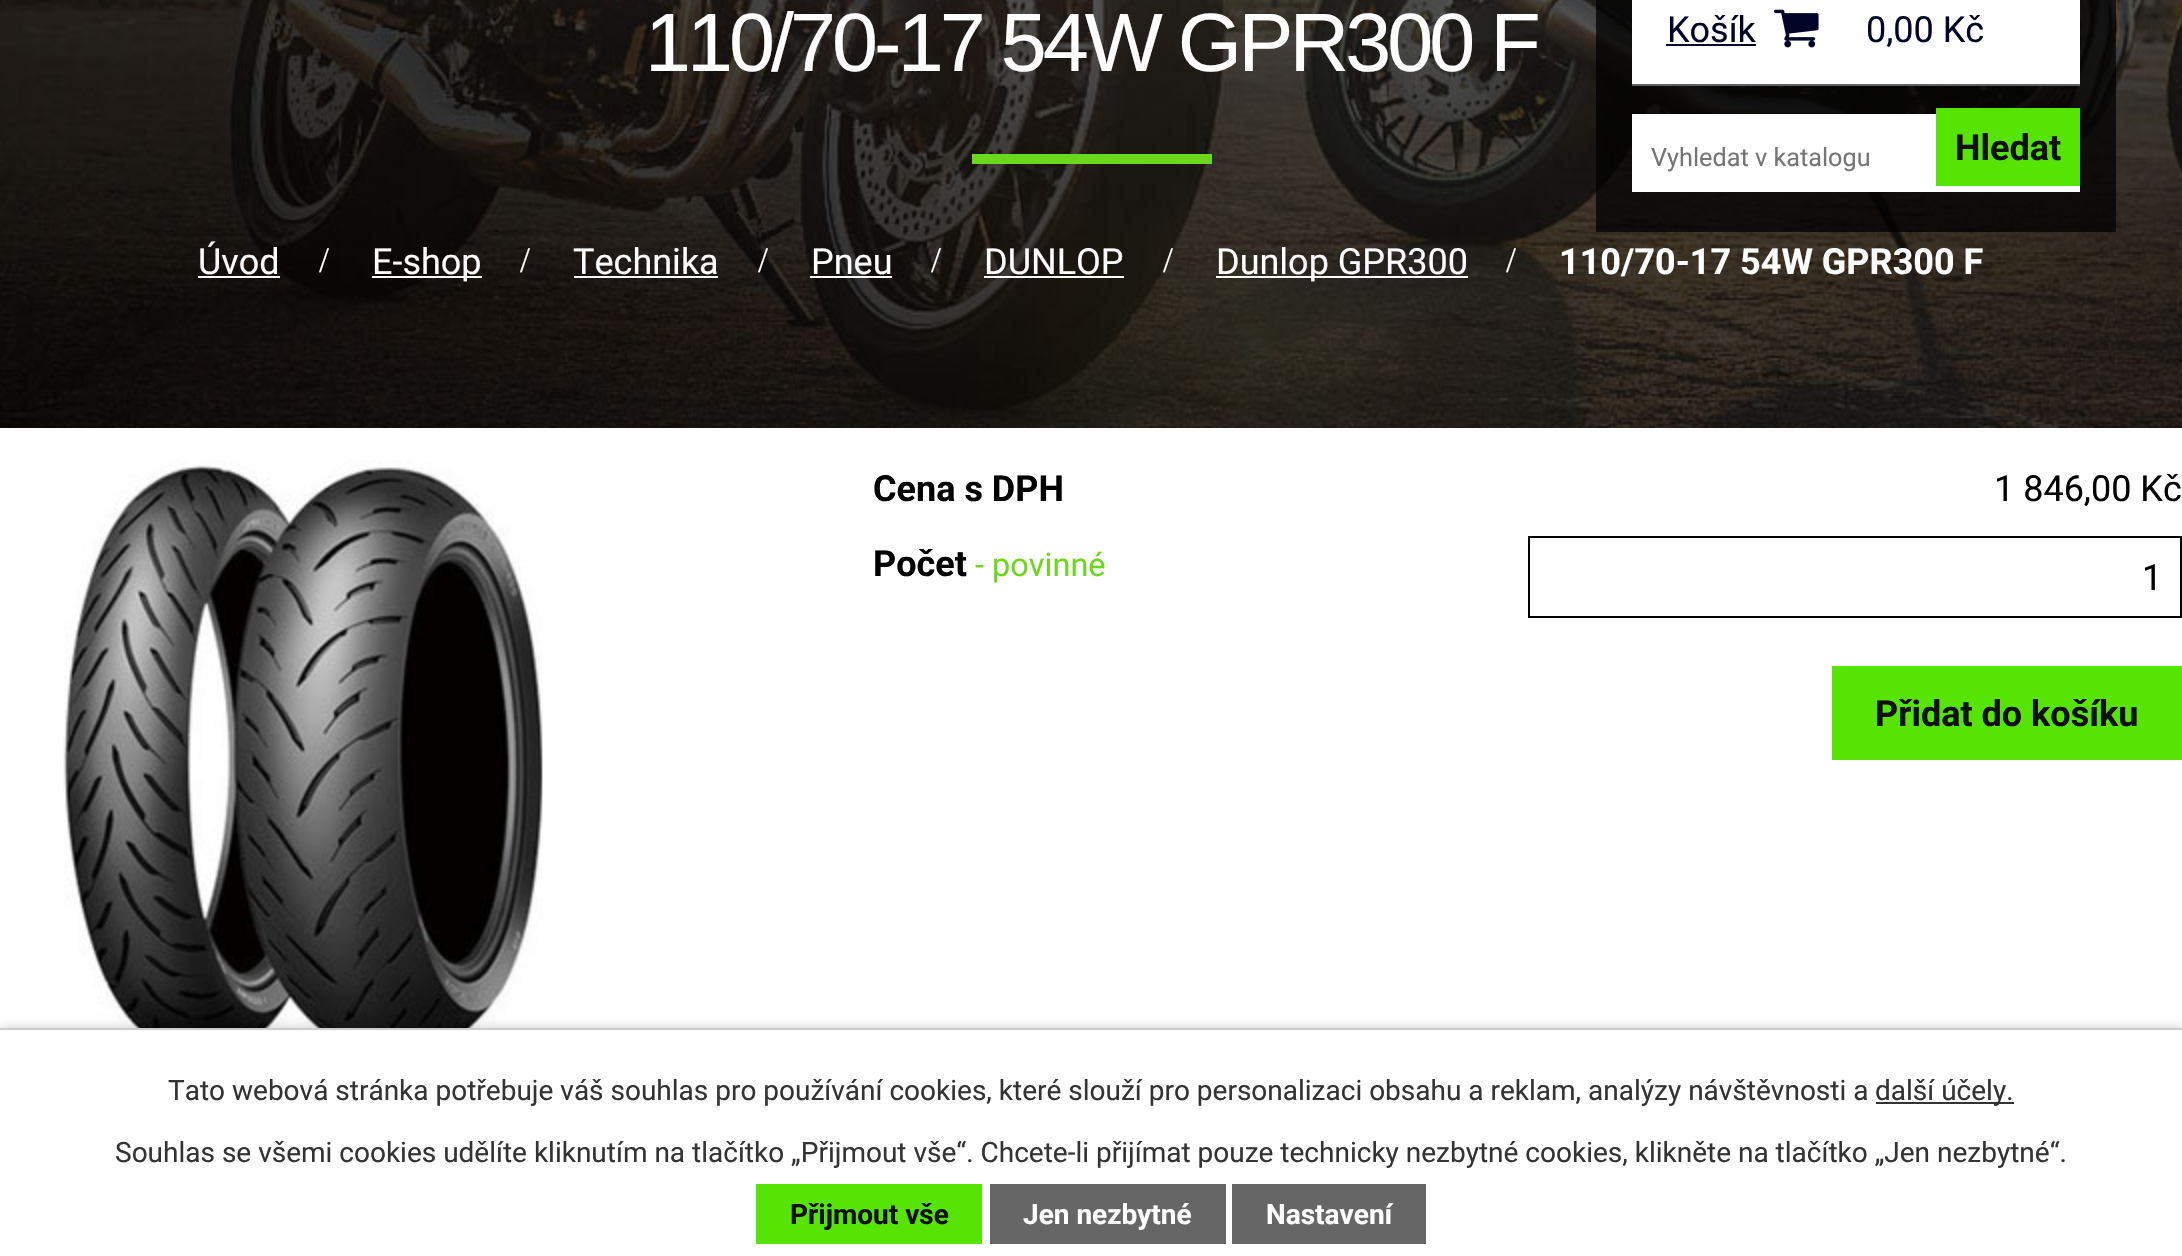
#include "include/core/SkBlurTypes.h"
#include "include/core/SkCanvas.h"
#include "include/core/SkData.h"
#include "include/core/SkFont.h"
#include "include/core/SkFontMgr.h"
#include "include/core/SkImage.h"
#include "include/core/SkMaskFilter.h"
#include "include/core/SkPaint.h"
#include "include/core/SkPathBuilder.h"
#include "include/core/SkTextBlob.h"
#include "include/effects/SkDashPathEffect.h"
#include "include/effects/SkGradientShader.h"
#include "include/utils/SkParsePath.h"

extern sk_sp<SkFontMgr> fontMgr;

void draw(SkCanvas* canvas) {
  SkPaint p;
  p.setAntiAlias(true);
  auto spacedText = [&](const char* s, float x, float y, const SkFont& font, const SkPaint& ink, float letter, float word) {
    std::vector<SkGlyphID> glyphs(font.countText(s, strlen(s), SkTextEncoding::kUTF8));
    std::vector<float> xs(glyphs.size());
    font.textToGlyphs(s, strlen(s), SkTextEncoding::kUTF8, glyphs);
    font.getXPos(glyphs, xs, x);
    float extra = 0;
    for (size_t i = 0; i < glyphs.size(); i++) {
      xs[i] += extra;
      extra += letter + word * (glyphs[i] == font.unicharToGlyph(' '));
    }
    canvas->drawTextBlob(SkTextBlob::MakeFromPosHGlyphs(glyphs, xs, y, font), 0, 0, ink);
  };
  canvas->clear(SK_ColorWHITE);
  canvas->drawImageRect(SkImages::DeferredFromEncodedData(SkData::MakeFromFileName("images/1.png")), SkRect::MakeLTRB(0, 0, 2182, 428), SkSamplingOptions());
  p.setColor(SkColorSetRGB(109, 215, 29));
  canvas->drawRect(SkRect::MakeLTRB(972, 154, 1212, 164), p);
  p.setColor(SK_ColorWHITE);
  canvas->drawRect(SkRect::MakeLTRB(198, 276, 280, 278), p);
  canvas->drawRect(SkRect::MakeLTRB(372, 276, 482, 278), p);
  canvas->drawRect(SkRect::MakeLTRB(574, 276, 718, 278), p);
  canvas->drawRect(SkRect::MakeLTRB(810, 276, 892, 278), p);
  canvas->drawRect(SkRect::MakeLTRB(984, 276, 1124, 278), p);
  canvas->drawRect(SkRect::MakeLTRB(1216, 276, 1468, 278), p);
  canvas->drawImageRect(SkImages::DeferredFromEncodedData(SkData::MakeFromFileName("images/2.png")), SkRect::MakeLTRB(63, 460, 543, 1028), SkSamplingOptions());
  p.setStyle(SkPaint::kStroke_Style);
  p.setStrokeWidth(2);
  p.setColor(SK_ColorBLACK);
  canvas->drawRect(SkRect::MakeLTRB(1529, 537, 2181, 617), p);
  p.setStyle(SkPaint::kFill_Style);
  p.setColor(SkColorSetRGB(86, 228, 2));
  canvas->drawRect(SkRect::MakeLTRB(1832, 666, 2182, 760), p);
  p.setColor(SkColorSetARGB(191, 0, 0, 0));
  canvas->drawRect(SkRect::MakeLTRB(1596, 0, 2116, 232), p);
  p.setColor(SK_ColorWHITE);
  canvas->drawRect(SkRect::MakeLTRB(1632, 0, 2080, 84), p);
  p.setColor(SkColorSetRGB(98, 98, 98));
  canvas->drawRect(SkRect::MakeLTRB(1632, 84, 2080, 86), p);
  p.setColor(SkColorSetRGB(2, 5, 39));
  canvas->drawRect(SkRect::MakeLTRB(1666, 44, 1756, 46), p);
  canvas->drawImageRect(SkImages::DeferredFromEncodedData(SkData::MakeFromFileName("images/3.png")), SkRect::MakeLTRB(1774, 9, 1819, 48), SkSamplingOptions());
  p.setColor(SK_ColorWHITE);
  canvas->drawRect(SkRect::MakeLTRB(1632, 114, 2080, 192), p);
  p.setColor(SkColorSetRGB(86, 228, 2));
  canvas->drawRect(SkRect::MakeLTRB(1936, 108, 2080, 186), p);
  p.setColor(SkColorSetARGB(51, 0, 0, 0));
  p.setMaskFilter(SkMaskFilter::MakeBlur(kNormal_SkBlurStyle, 5));
  canvas->drawRect(SkRect::MakeLTRB(0, 1028, 2182, 1256), p);
  p.setMaskFilter(nullptr);
  p.setColor(SK_ColorWHITE);
  canvas->drawRect(SkRect::MakeLTRB(0, 1030, 2182, 1256), p);
  p.setColor(SkColorSetRGB(204, 204, 204));
  canvas->drawRect(SkRect::MakeLTRB(0, 1028, 2182, 1030), p);
  p.setColor(SkColorSetRGB(51, 51, 51));
  canvas->drawRect(SkRect::MakeLTRB(1876, 1102, 2014, 1104), p);
  p.setColor(SkColorSetRGB(86, 228, 2));
  canvas->drawRect(SkRect::MakeLTRB(756, 1184, 982, 1244), p);
  p.setColor(SkColorSetRGB(102, 102, 102));
  canvas->drawRect(SkRect::MakeLTRB(990, 1184, 1226, 1244), p);
  canvas->drawRect(SkRect::MakeLTRB(1232, 1184, 1426, 1244), p);
  SkFont font1(fontMgr->matchFamilyStyle("Liberation Sans", SkFontStyle::Normal()), 82.75f);
  font1.setSubpixel(true);
  p.setColor(SK_ColorWHITE);
  spacedText("110/70-17 54W GPR300 F", 645, 71, font1, p, -4, 0);
  SkFont font2(fontMgr->matchFamilyStyle("Roboto", SkFontStyle::Normal()), 36);
  font2.setSubpixel(true);
  canvas->drawString("Úvod", 198, 274, font2, p);
  SkFont font3(fontMgr->matchFamilyStyle("Liberation Serif", SkFontStyle::Normal()), 36);
  font3.setSubpixel(true);
  canvas->drawString("/", 319, 272, font3, p);
  canvas->drawString("E-shop", 372, 274, font2, p);
  canvas->drawString("/", 520, 272, font3, p);
  canvas->drawString("Technika", 573, 274, font2, p);
  canvas->drawString("/", 758, 272, font3, p);
  canvas->drawString("Pneu", 811, 274, font2, p);
  canvas->drawString("/", 931, 272, font3, p);
  canvas->drawString("DUNLOP", 984, 274, font2, p);
  canvas->drawString("/", 1163, 272, font3, p);
  canvas->drawString("Dunlop GPR300", 1216, 274, font2, p);
  canvas->drawString("/", 1506, 272, font3, p);
  SkFont font4(fontMgr->matchFamilyStyle("Roboto", SkFontStyle::Bold()), 36);
  font4.setSubpixel(true);
  canvas->drawString("110/70-17 54W GPR300 F", 1559, 274, font4, p);
  p.setColor(SK_ColorBLACK);
  canvas->drawString("Cena s DPH", 873, 501, font4, p);
  canvas->drawString("1 846,00 Kč", 1994, 501, font2, p);
  canvas->drawString("Počet", 873, 576, font4, p);
  SkFont font5(fontMgr->matchFamilyStyle("Roboto", SkFontStyle::Normal()), 32.5f);
  font5.setSubpixel(true);
  p.setColor(SkColorSetRGB(109, 215, 29));
  canvas->drawString("- povinné", 975, 576, font5, p);
  p.setColor(SK_ColorBLACK);
  canvas->drawString("1", 2142, 590, font2, p);
  p.setColor(SkColorSetRGB(15, 15, 15));
  canvas->drawString("Přidat do košíku", 1875, 726, font4, p);
  p.setColor(SkColorSetRGB(2, 5, 39));
  canvas->drawString("Košík", 1667, 42, font2, p);
  canvas->drawString("0,00 Kč", 1866, 42, font2, p);
  SkFont font6(fontMgr->matchFamilyStyle("Roboto", SkFontStyle::Normal()), 25.25f);
  font6.setSubpixel(true);
  p.setColor(SkColorSetRGB(117, 117, 117));
  canvas->drawString("Vyhledat v katalogu", 1651, 166, font6, p);
  p.setColor(SkColorSetRGB(15, 15, 15));
  canvas->drawString("Hledat", 1955, 160, font4, p);
  SkFont font7(fontMgr->matchFamilyStyle("Roboto", SkFontStyle::Normal()), 28);
  font7.setSubpixel(true);
  p.setColor(SkColorSetRGB(51, 51, 51));
  canvas->drawString("Tato webová stránka potřebuje váš souhlas pro používání cookies, které slouží pro personalizaci obsahu a reklam, analýzy návštěvnosti a", 168, 1100, font7, p);
  canvas->drawString("další účely.", 1875, 1100, font7, p);
  canvas->drawString("Souhlas se všemi cookies udělíte kliknutím na tlačítko „Přijmout vše“. Chcete-li přijímat pouze technicky nezbytné cookies, klikněte na tlačítko „Jen nezbytné“.", 115, 1162, font7, p);
  SkFont font8(fontMgr->matchFamilyStyle("Roboto", SkFontStyle::Bold()), 28);
  font8.setSubpixel(true);
  p.setColor(SkColorSetRGB(15, 15, 15));
  canvas->drawString("Přijmout vše", 790, 1224, font8, p);
  p.setColor(SK_ColorWHITE);
  canvas->drawString("Jen nezbytné", 1023, 1224, font8, p);
  canvas->drawString("Nastavení", 1266, 1224, font8, p);
}
